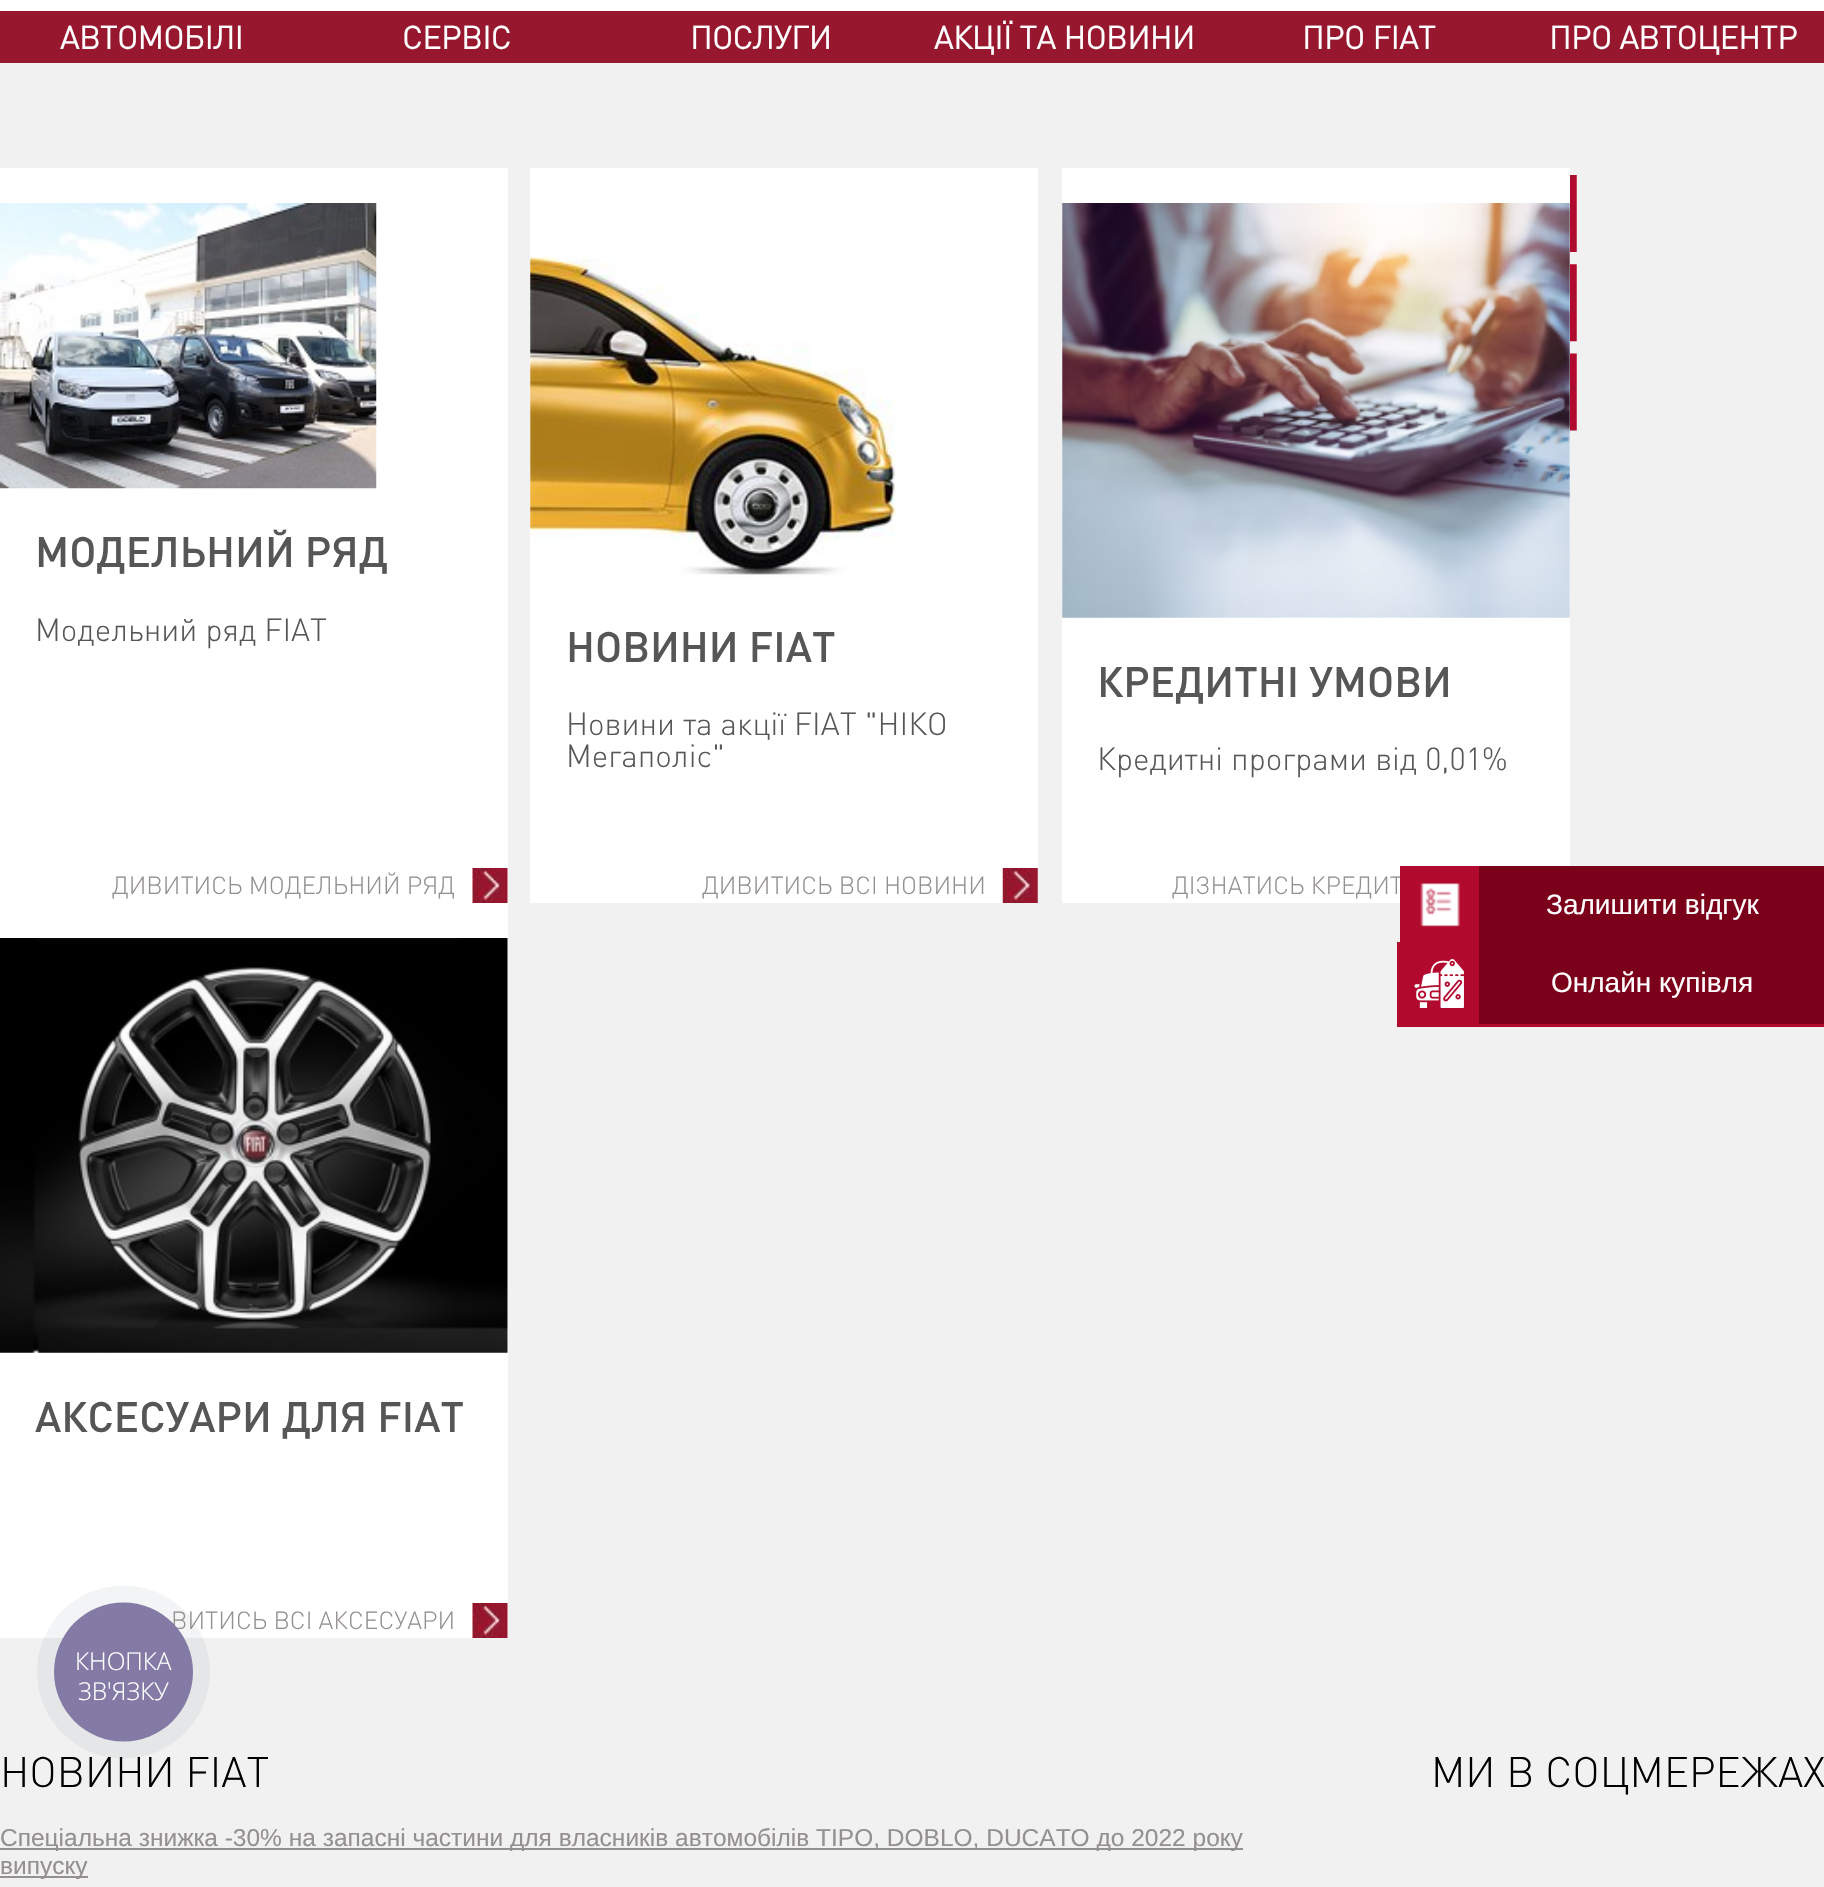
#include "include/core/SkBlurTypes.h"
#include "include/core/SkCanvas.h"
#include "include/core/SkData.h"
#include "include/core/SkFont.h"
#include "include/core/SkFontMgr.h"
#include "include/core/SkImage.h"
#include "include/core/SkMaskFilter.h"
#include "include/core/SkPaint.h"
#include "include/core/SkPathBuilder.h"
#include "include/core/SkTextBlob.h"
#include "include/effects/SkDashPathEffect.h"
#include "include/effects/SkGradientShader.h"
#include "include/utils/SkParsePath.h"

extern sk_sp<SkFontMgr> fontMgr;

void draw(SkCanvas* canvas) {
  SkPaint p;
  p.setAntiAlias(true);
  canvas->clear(SkColorSetRGB(241, 241, 241));
  p.setColor(SK_ColorWHITE);
  canvas->drawRect(SkRect::MakeLTRB(0, 0, 1824, 11), p);
  p.setColor(SkColorSetRGB(150, 23, 46));
  canvas->drawRect(SkRect::MakeLTRB(0, 11, 1824, 63), p);
  canvas->drawImageRect(SkImages::DeferredFromEncodedData(SkData::MakeFromFileName("images/1.png")), SkRect::MakeLTRB(1570, 175, 1577, 252), SkSamplingOptions());
  canvas->drawImageRect(SkImages::DeferredFromEncodedData(SkData::MakeFromFileName("images/2.png")), SkRect::MakeLTRB(1570, 264, 1577, 342), SkSamplingOptions());
  canvas->drawImageRect(SkImages::DeferredFromEncodedData(SkData::MakeFromFileName("images/3.png")), SkRect::MakeLTRB(1570, 353, 1577, 431), SkSamplingOptions());
  p.setColor(SK_ColorWHITE);
  canvas->drawRect(SkRect::MakeLTRB(0, 168, 508, 1638), p);
  canvas->drawImageRect(SkImages::DeferredFromEncodedData(SkData::MakeFromFileName("images/4.png")), SkRect::MakeLTRB(0, 203, 377, 489), SkSamplingOptions());
  canvas->drawImageRect(SkImages::DeferredFromEncodedData(SkData::MakeFromFileName("images/5.png")), SkRect::MakeLTRB(472, 868, 508, 903), SkSamplingOptions());
  canvas->drawRect(SkRect::MakeLTRB(530, 168, 1038, 903), p);
  canvas->drawImageRect(SkImages::DeferredFromEncodedData(SkData::MakeFromFileName("images/6.png")), SkRect::MakeLTRB(530, 256, 897, 579), SkSamplingOptions());
  canvas->drawImageRect(SkImages::DeferredFromEncodedData(SkData::MakeFromFileName("images/7.png")), SkRect::MakeLTRB(1002, 868, 1038, 903), SkSamplingOptions());
  canvas->drawRect(SkRect::MakeLTRB(1062, 168, 1570, 903), p);
  canvas->drawImageRect(SkImages::DeferredFromEncodedData(SkData::MakeFromFileName("images/8.png")), SkRect::MakeLTRB(1062, 203, 1570, 618), SkSamplingOptions());
  canvas->drawImageRect(SkImages::DeferredFromEncodedData(SkData::MakeFromFileName("images/9.png")), SkRect::MakeLTRB(0, 938, 508, 1353), SkSamplingOptions());
  canvas->drawImageRect(SkImages::DeferredFromEncodedData(SkData::MakeFromFileName("images/5.png")), SkRect::MakeLTRB(472, 1603, 508, 1638), SkSamplingOptions());
  p.setStyle(SkPaint::kStroke_Style);
  p.setStrokeWidth(4);
  p.setColor(SkColorSetRGB(178, 10, 46));
  canvas->drawRect(SkRect::MakeLTRB(1399, 944, 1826, 1025), p);
  p.setStyle(SkPaint::kFill_Style);
  p.setColor(SkColorSetRGB(123, 0, 26));
  canvas->drawRect(SkRect::MakeLTRB(1479, 866, 1824, 1024), p);
  p.setColor(SkColorSetRGB(178, 10, 46));
  canvas->drawRect(SkRect::MakeLTRB(1401, 946, 1479, 1023), p);
  canvas->drawImageRect(SkImages::DeferredFromEncodedData(SkData::MakeFromFileName("images/11.png")), SkRect::MakeLTRB(1414, 959, 1464, 1008), SkSamplingOptions());
  p.setColor(SkColorSetARGB(15, 42, 64, 93));
  canvas->drawCircle(123.5f, 1672, 86.5f, p);
  p.setColor(SkColorSetRGB(149, 144, 144));
  canvas->drawRect(SkRect::MakeLTRB(0, 1848, 1243, 1850), p);
  canvas->drawRect(SkRect::MakeLTRB(0, 1876, 88, 1878), p);
  SkFont font1(fontMgr->matchFamilyStyle("DIN", SkFontStyle::Bold()), 31.5f);
  font1.setSubpixel(true);
  p.setColor(SK_ColorWHITE);
  canvas->drawString("АВТОМОБІЛІ", 60, 49, font1, p);
  canvas->drawString("СЕРВІС", 402, 49, font1, p);
  canvas->drawString("ПОСЛУГИ", 690, 49, font1, p);
  canvas->drawString("АКЦІЇ ТА НОВИНИ", 934, 49, font1, p);
  canvas->drawString("ПРО FIAT", 1302, 49, font1, p);
  canvas->drawString("ПРО АВТОЦЕНТР", 1549, 49, font1, p);
  SkFont font2(fontMgr->matchFamilyStyle("DIN", SkFontStyle(500, SkFontStyle::kNormal_Width, SkFontStyle::kUpright_Slant)), 42);
  font2.setSubpixel(true);
  p.setColor(SkColorSetRGB(86, 86, 86));
  canvas->drawString("МОДЕЛЬНИЙ РЯД", 35, 567, font2, p);
  SkFont font3(fontMgr->matchFamilyStyle("DIN", SkFontStyle(300, SkFontStyle::kNormal_Width, SkFontStyle::kUpright_Slant)), 31.5f);
  font3.setSubpixel(true);
  canvas->drawString("Модельний ряд FIAT", 35, 641, font3, p);
  SkFont font4(fontMgr->matchFamilyStyle("DIN", SkFontStyle(300, SkFontStyle::kNormal_Width, SkFontStyle::kUpright_Slant)), 24.5f);
  font4.setSubpixel(true);
  p.setColor(SkColorSetRGB(149, 144, 144));
  canvas->drawString("ДИВИТИСЬ МОДЕЛЬНИЙ РЯД", 112, 894, font4, p);
  p.setColor(SkColorSetRGB(86, 86, 86));
  canvas->drawString("НОВИНИ FIAT", 566, 662, font2, p);
  canvas->drawString("Новини та акції FIAT \"НІКО", 566, 735, font3, p);
  canvas->drawString("Мегаполіс\"", 566, 767, font3, p);
  p.setColor(SkColorSetRGB(149, 144, 144));
  canvas->drawString("ДИВИТИСЬ ВСІ НОВИНИ", 702, 894, font4, p);
  p.setColor(SkColorSetRGB(86, 86, 86));
  canvas->drawString("КРЕДИТНІ УМОВИ", 1097, 697, font2, p);
  canvas->drawString("Кредитні програми від 0,01%", 1097, 770, font3, p);
  p.setColor(SkColorSetRGB(149, 144, 144));
  canvas->drawString("ДІЗНАТИСЬ КРЕДИТ", 1172, 894, font4, p);
  p.setColor(SkColorSetRGB(86, 86, 86));
  canvas->drawString("АКСЕСУАРИ ДЛЯ FIAT", 35, 1432, font2, p);
  p.setColor(SkColorSetRGB(149, 144, 144));
  canvas->drawString("ВИТИСЬ ВСІ АКСЕСУАРИ", 171, 1629, font4, p);
  p.setColor(SkColorSetRGB(178, 10, 46));
  canvas->drawRect(SkRect::MakeLTRB(1400, 866, 1479, 942), p);
  canvas->drawImageRect(SkImages::DeferredFromEncodedData(SkData::MakeFromFileName("images/10.png")), SkRect::MakeLTRB(1420, 883, 1460, 927), SkSamplingOptions());
  SkFont font5(fontMgr->matchFamilyStyle("Liberation Sans", SkFontStyle::Normal()), 28);
  font5.setSubpixel(true);
  p.setColor(SK_ColorWHITE);
  canvas->drawString("Залишити відгук", 1546, 914, font5, p);
  canvas->drawString("Онлайн купівля", 1551, 992, font5, p);
  p.setColor(SkColorSetRGB(131, 123, 166));
  canvas->drawCircle(123.5f, 1672, 69.5f, p);
  SkFont font6(fontMgr->matchFamilyStyle("Open Sans", SkFontStyle(300, SkFontStyle::kNormal_Width, SkFontStyle::kUpright_Slant)), 24.5f);
  font6.setSubpixel(true);
  p.setColor(SK_ColorWHITE);
  canvas->drawString("КНОПКА", 75, 1670, font6, p);
  canvas->drawString("ЗВ'ЯЗКУ", 78, 1700, font6, p);
  SkFont font7(fontMgr->matchFamilyStyle("DIN", SkFontStyle(300, SkFontStyle::kNormal_Width, SkFontStyle::kUpright_Slant)), 42);
  font7.setSubpixel(true);
  p.setColor(SK_ColorBLACK);
  canvas->drawString("НОВИНИ FIAT", 0, 1787, font7, p);
  SkFont font8(fontMgr->matchFamilyStyle("Liberation Sans", SkFontStyle::Normal()), 24.5f);
  font8.setSubpixel(true);
  p.setColor(SkColorSetRGB(149, 144, 144));
  canvas->drawString("Спеціальна знижка -30% на запасні частини для власників автомобілів TIPO, DOBLO, DUCATO до 2022 року", 0, 1846, font8, p);
  canvas->drawString("випуску", 0, 1874, font8, p);
  p.setColor(SK_ColorBLACK);
  canvas->drawString("МИ В СОЦМЕРЕЖАХ", 1431, 1787, font7, p);
}
